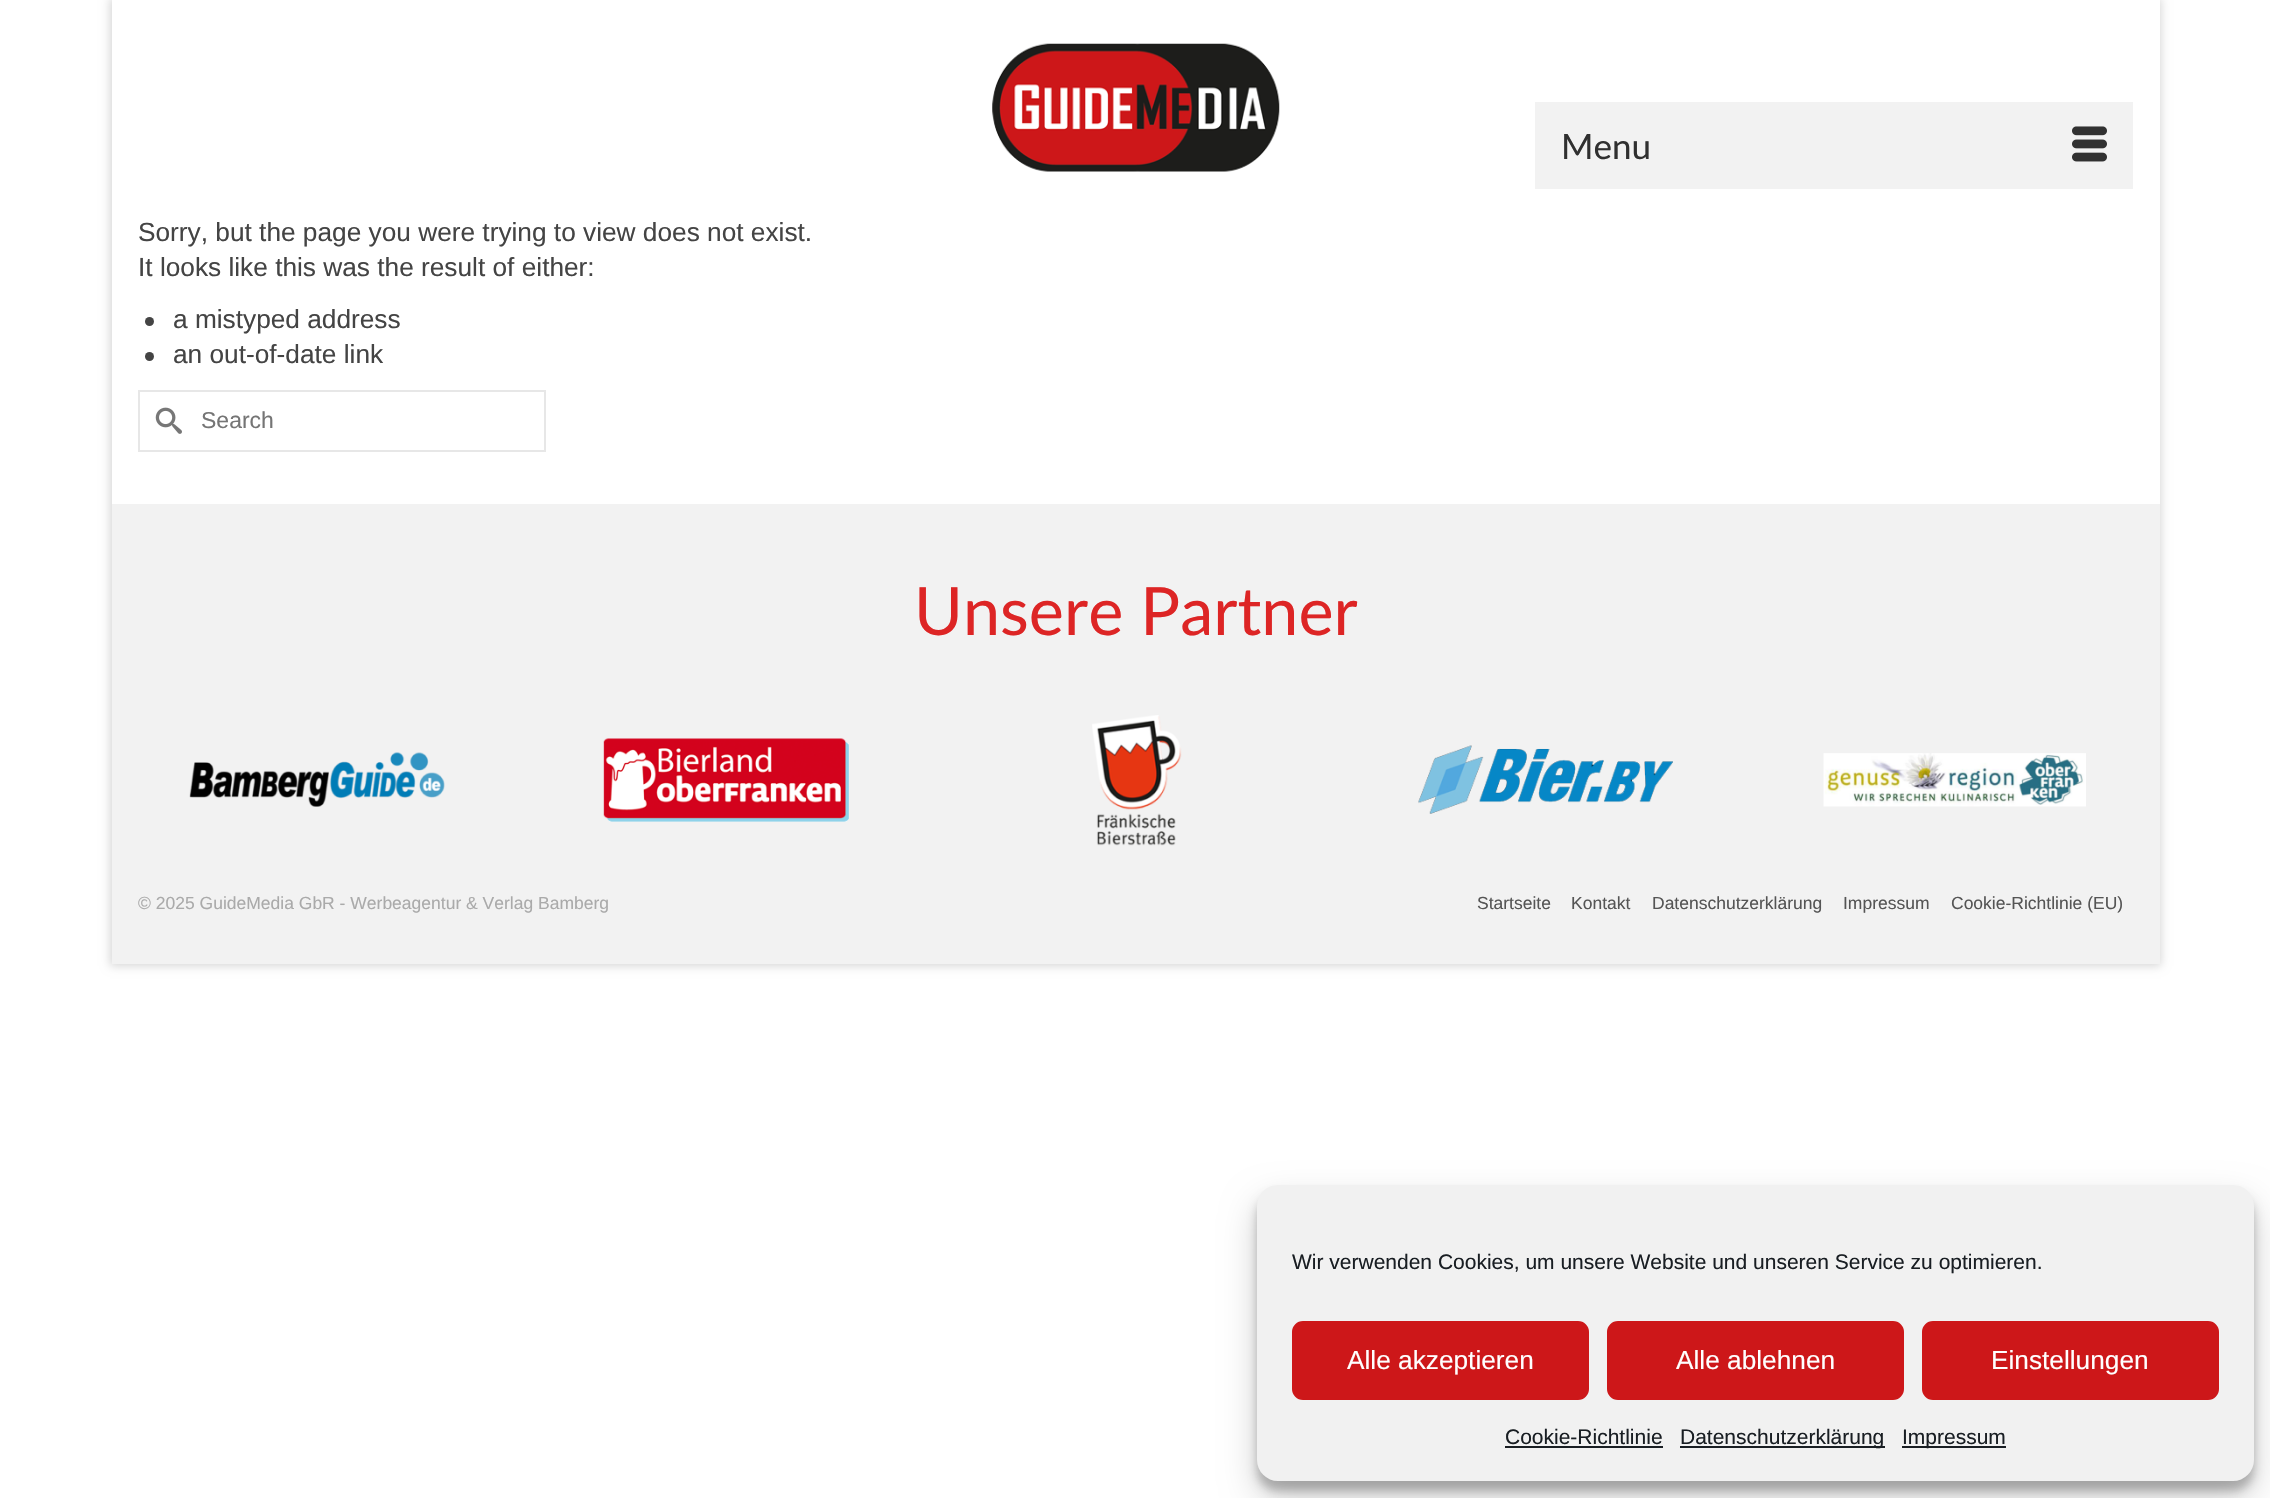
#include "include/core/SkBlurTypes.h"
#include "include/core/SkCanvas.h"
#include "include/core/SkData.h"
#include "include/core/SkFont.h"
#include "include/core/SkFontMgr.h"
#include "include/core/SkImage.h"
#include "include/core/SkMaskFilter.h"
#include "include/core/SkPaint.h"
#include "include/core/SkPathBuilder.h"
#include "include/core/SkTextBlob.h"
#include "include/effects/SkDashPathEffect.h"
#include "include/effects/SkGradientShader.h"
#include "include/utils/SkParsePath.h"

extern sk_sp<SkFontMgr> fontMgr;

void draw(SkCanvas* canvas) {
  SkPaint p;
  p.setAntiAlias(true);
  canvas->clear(SK_ColorWHITE);
  p.setColor(SkColorSetARGB(41, 0, 0, 0));
  p.setMaskFilter(SkMaskFilter::MakeBlur(kNormal_SkBlurStyle, 4.5f));
  canvas->drawRect(SkRect::MakeLTRB(110, -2, 2161, 966), p);
  p.setMaskFilter(nullptr);
  p.setColor(SK_ColorWHITE);
  canvas->drawRect(SkRect::MakeLTRB(112, 0, 2160, 504), p);
  canvas->drawImageRect(SkImages::DeferredFromEncodedData(SkData::MakeFromFileName("images/1.png")), SkRect::MakeLTRB(992, 43, 1280, 172), SkSamplingOptions());
  p.setColor(SkColorSetRGB(242, 242, 242));
  canvas->drawRect(SkRect::MakeLTRB(1535, 102, 2133, 189), p);
  canvas->drawImageRect(SkImages::DeferredFromEncodedData(SkData::MakeFromFileName("images/2.png")), SkRect::MakeLTRB(2072, 126, 2107, 162), SkSamplingOptions());
  p.setColor(SkColorSetRGB(68, 68, 68));
  canvas->drawCircle(149.5f, 321.5f, 4.5f, p);
  canvas->drawCircle(149.5f, 356.5f, 4.5f, p);
  p.setStyle(SkPaint::kStroke_Style);
  p.setStrokeWidth(2);
  p.setColor(SkColorSetRGB(231, 231, 231));
  canvas->drawRect(SkRect::MakeLTRB(139, 391, 545, 451), p);
  canvas->drawImageRect(SkImages::DeferredFromEncodedData(SkData::MakeFromFileName("images/3.png")), SkRect::MakeLTRB(155, 407, 182, 434), SkSamplingOptions());
  p.setStyle(SkPaint::kFill_Style);
  p.setColor(SkColorSetRGB(242, 242, 242));
  canvas->drawRect(SkRect::MakeLTRB(112, 504, 2160, 964), p);
  canvas->drawImageRect(SkImages::DeferredFromEncodedData(SkData::MakeFromFileName("images/4.png")), SkRect::MakeLTRB(189, 752, 445, 807), SkSamplingOptions());
  canvas->drawImageRect(SkImages::DeferredFromEncodedData(SkData::MakeFromFileName("images/5.png")), SkRect::MakeLTRB(603, 738, 849, 822), SkSamplingOptions());
  canvas->drawImageRect(SkImages::DeferredFromEncodedData(SkData::MakeFromFileName("images/6.png")), SkRect::MakeLTRB(1092, 715, 1182, 846), SkSamplingOptions());
  canvas->drawImageRect(SkImages::DeferredFromEncodedData(SkData::MakeFromFileName("images/7.png")), SkRect::MakeLTRB(1418, 745, 1673, 814), SkSamplingOptions());
  canvas->drawImageRect(SkImages::DeferredFromEncodedData(SkData::MakeFromFileName("images/8.png")), SkRect::MakeLTRB(1823, 753, 2086, 807), SkSamplingOptions());
  p.setColor(SkColorSetARGB(59, 0, 0, 0));
  p.setMaskFilter(SkMaskFilter::MakeBlur(kNormal_SkBlurStyle, 5));
  canvas->drawRoundRect(SkRect::MakeLTRB(1257, 1195, 2254, 1491), 21, 21, p);
  p.setMaskFilter(nullptr);
  p.setColor(SkColorSetARGB(48, 0, 0, 0));
  p.setMaskFilter(SkMaskFilter::MakeBlur(kNormal_SkBlurStyle, 17.5f));
  canvas->drawRoundRect(SkRect::MakeLTRB(1257, 1202, 2254, 1498), 21, 21, p);
  p.setMaskFilter(nullptr);
  p.setColor(SkColorSetRGB(241, 241, 241));
  canvas->drawRoundRect(SkRect::MakeLTRB(1257, 1185, 2254, 1481), 21, 21, p);
  p.setColor(SkColorSetRGB(205, 23, 25));
  canvas->drawRoundRect(SkRect::MakeLTRB(1293, 1322, 1588, 1399), 10, 10, p);
  p.setStyle(SkPaint::kStroke_Style);
  canvas->drawRoundRect(SkRect::MakeLTRB(1293, 1322, 1588, 1399), 10, 10, p);
  p.setStyle(SkPaint::kFill_Style);
  canvas->drawRoundRect(SkRect::MakeLTRB(1608, 1322, 1903, 1399), 10, 10, p);
  p.setStyle(SkPaint::kStroke_Style);
  canvas->drawRoundRect(SkRect::MakeLTRB(1608, 1322, 1903, 1399), 10, 10, p);
  p.setStyle(SkPaint::kFill_Style);
  canvas->drawRoundRect(SkRect::MakeLTRB(1923, 1322, 2218, 1399), 10, 10, p);
  p.setStyle(SkPaint::kStroke_Style);
  canvas->drawRoundRect(SkRect::MakeLTRB(1923, 1322, 2218, 1399), 10, 10, p);
  p.setStyle(SkPaint::kFill_Style);
  p.setColor(SkColorSetRGB(25, 30, 35));
  canvas->drawRect(SkRect::MakeLTRB(1505, 1446, 1663, 1448), p);
  canvas->drawRect(SkRect::MakeLTRB(1680, 1446, 1885, 1448), p);
  canvas->drawRect(SkRect::MakeLTRB(1902, 1446, 2006, 1448), p);
  SkFont font1(fontMgr->matchFamilyStyle("Lato", SkFontStyle::Normal()), 35);
  font1.setSubpixel(true);
  p.setColor(SkColorSetRGB(48, 48, 48));
  canvas->drawString("Menu", 1561, 159, font1, p);
  SkFont font2(fontMgr->matchFamilyStyle("Liberation Sans", SkFontStyle::Normal()), 26.25f);
  font2.setSubpixel(true);
  p.setColor(SkColorSetRGB(68, 68, 68));
  canvas->drawString("Sorry, but the page you were trying to view does not exist.", 138, 241, font2, p);
  canvas->drawString("It looks like this was the result of either:", 138, 276, font2, p);
  canvas->drawString("a mistyped address", 173, 328, font2, p);
  canvas->drawString("an out-of-date link", 173, 363, font2, p);
  SkFont font3(fontMgr->matchFamilyStyle("Liberation Sans", SkFontStyle::Normal()), 23);
  font3.setSubpixel(true);
  p.setColor(SkColorSetRGB(117, 117, 117));
  canvas->drawString("Search", 201, 428, font3, p);
  SkFont font4(fontMgr->matchFamilyStyle("Lato", SkFontStyle::Normal()), 66.5f);
  font4.setSubpixel(true);
  p.setColor(SkColorSetRGB(221, 37, 37));
  canvas->drawString("Unsere Partner", 914, 635, font4, p);
  SkFont font5(fontMgr->matchFamilyStyle("Liberation Sans", SkFontStyle::Normal()), 17.5f);
  font5.setSubpixel(true);
  p.setColor(SkColorSetRGB(170, 170, 170));
  canvas->drawString("© 2025 GuideMedia GbR - Werbeagentur & Verlag Bamberg", 138, 909, font5, p);
  p.setColor(SkColorSetRGB(85, 85, 85));
  canvas->drawString("Startseite", 1477, 909, font5, p);
  canvas->drawString("Kontakt", 1571, 909, font5, p);
  canvas->drawString("Datenschutzerklärung", 1652, 909, font5, p);
  canvas->drawString("Impressum", 1843, 909, font5, p);
  canvas->drawString("Cookie-Richtlinie (EU)", 1951, 909, font5, p);
  SkFont font6(fontMgr->matchFamilyStyle("Liberation Sans", SkFontStyle::Normal()), 21);
  font6.setSubpixel(true);
  p.setColor(SkColorSetRGB(25, 30, 35));
  canvas->drawString("Wir verwenden Cookies, um unsere Website und unseren Service zu optimieren.", 1292, 1269, font6, p);
  p.setColor(SK_ColorWHITE);
  canvas->drawString("Alle akzeptieren", 1347, 1369, font2, p);
  canvas->drawString("Alle ablehnen", 1676, 1369, font2, p);
  canvas->drawString("Einstellungen", 1991, 1369, font2, p);
  p.setColor(SkColorSetRGB(25, 30, 35));
  canvas->drawString("Cookie-Richtlinie", 1505, 1444, font6, p);
  canvas->drawString("Datenschutzerklärung", 1680, 1444, font6, p);
  canvas->drawString("Impressum", 1902, 1444, font6, p);
}
